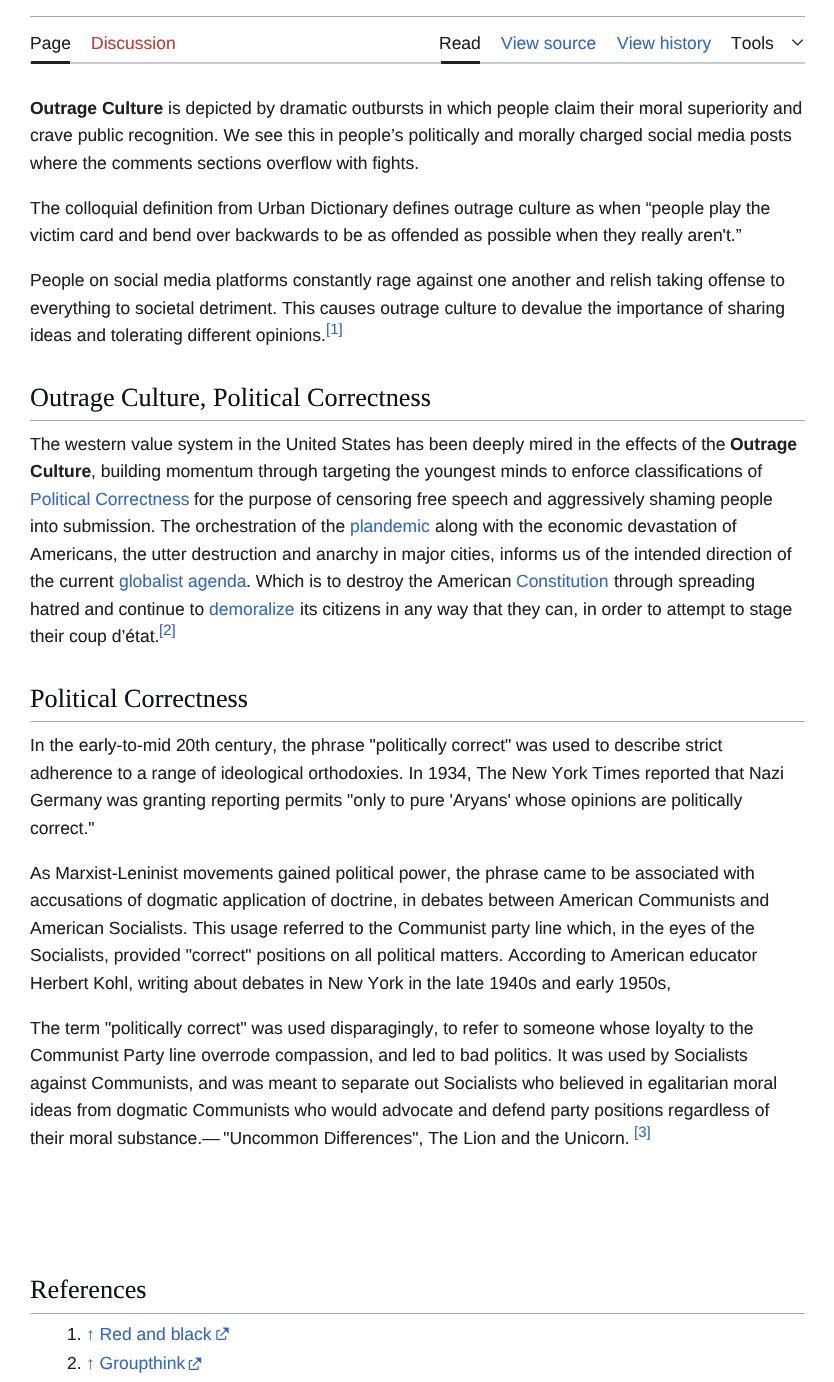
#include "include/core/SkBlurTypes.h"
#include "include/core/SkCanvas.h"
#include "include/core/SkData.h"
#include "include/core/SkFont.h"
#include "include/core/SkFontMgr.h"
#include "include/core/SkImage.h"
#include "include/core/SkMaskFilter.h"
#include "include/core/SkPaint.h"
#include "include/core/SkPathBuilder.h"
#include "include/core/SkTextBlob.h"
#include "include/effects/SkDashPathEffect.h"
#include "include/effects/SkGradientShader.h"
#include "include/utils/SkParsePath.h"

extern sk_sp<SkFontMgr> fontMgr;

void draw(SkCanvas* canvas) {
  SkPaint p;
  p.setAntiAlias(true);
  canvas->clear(SK_ColorWHITE);
  p.setColor(SkColorSetRGB(162, 169, 177));
  canvas->drawRect(SkRect::MakeLTRB(30, 16, 805, 17), p);
  p.setColor(SkColorSetRGB(200, 204, 209));
  canvas->drawRect(SkRect::MakeLTRB(30, 62, 805, 64), p);
  p.setColor(SkColorSetRGB(32, 33, 34));
  canvas->drawRect(SkRect::MakeLTRB(31, 61, 70, 64), p);
  canvas->drawRect(SkRect::MakeLTRB(441, 61, 480, 64), p);
  canvas->drawImageRect(SkImages::DeferredFromEncodedData(SkData::MakeFromFileName("images/1.png")), SkRect::MakeLTRB(792, 39, 803, 46), SkSamplingOptions());
  p.setColor(SkColorSetRGB(162, 169, 177));
  canvas->drawRect(SkRect::MakeLTRB(30, 420, 805, 421), p);
  canvas->drawRect(SkRect::MakeLTRB(30, 721, 805, 722), p);
  canvas->drawRect(SkRect::MakeLTRB(30, 1313, 805, 1314), p);
  canvas->drawImageRect(SkImages::DeferredFromEncodedData(SkData::MakeFromFileName("images/2.png")), SkRect::MakeLTRB(216, 1327, 229, 1340), SkSamplingOptions());
  canvas->drawImageRect(SkImages::DeferredFromEncodedData(SkData::MakeFromFileName("images/3.png")), SkRect::MakeLTRB(188, 1357, 202, 1370), SkSamplingOptions());
  SkFont font1(fontMgr->matchFamilyStyle("Liberation Sans", SkFontStyle::Normal()), 17.5f);
  font1.setSubpixel(true);
  p.setColor(SkColorSetRGB(32, 33, 34));
  canvas->drawString("Page", 30, 49, font1, p);
  p.setColor(SkColorSetRGB(191, 60, 44));
  canvas->drawString("Discussion", 91, 49, font1, p);
  p.setColor(SkColorSetRGB(32, 33, 34));
  canvas->drawString("Read", 439, 49, font1, p);
  p.setColor(SkColorSetRGB(51, 102, 204));
  canvas->drawString("View source", 501, 49, font1, p);
  canvas->drawString("View history", 617, 49, font1, p);
  p.setColor(SkColorSetRGB(32, 33, 34));
  canvas->drawString("Tools", 731, 49, font1, p);
  SkFont font2(fontMgr->matchFamilyStyle("Liberation Sans", SkFontStyle::Bold()), 17.5f);
  font2.setSubpixel(true);
  canvas->drawString("Outrage Culture", 30, 114, font2, p);
  canvas->drawString("is depicted by dramatic outbursts in which people claim their moral superiority and", 168, 114, font1, p);
  canvas->drawString("crave public recognition. We see this in people’s politically and morally charged social media posts", 30, 141, font1, p);
  canvas->drawString("where the comments sections overflow with fights.", 30, 169, font1, p);
  canvas->drawString("The colloquial definition from Urban Dictionary defines outrage culture as when “people play the", 30, 214, font1, p);
  canvas->drawString("victim card and bend over backwards to be as offended as possible when they really aren't.”", 30, 241, font1, p);
  canvas->drawString("People on social media platforms constantly rage against one another and relish taking offense to", 30, 286, font1, p);
  canvas->drawString("everything to societal detriment. This causes outrage culture to devalue the importance of sharing", 30, 314, font1, p);
  canvas->drawString("ideas and tolerating different opinions.", 30, 341, font1, p);
  SkFont font3(fontMgr->matchFamilyStyle("Liberation Sans", SkFontStyle::Normal()), 15);
  font3.setSubpixel(true);
  p.setColor(SkColorSetRGB(51, 102, 204));
  canvas->drawString("[1]", 326, 334, font3, p);
  SkFont font4(fontMgr->matchFamilyStyle("Liberation Serif", SkFontStyle::Normal()), 26.25f);
  font4.setSubpixel(true);
  p.setColor(SkColorSetRGB(16, 20, 24));
  canvas->drawString("Outrage Culture, Political Correctness", 30, 406, font4, p);
  p.setColor(SkColorSetRGB(32, 33, 34));
  canvas->drawString("The western value system in the United States has been deeply mired in the effects of the", 30, 450, font1, p);
  canvas->drawString("Outrage", 730, 450, font2, p);
  canvas->drawString("Culture", 30, 477, font2, p);
  canvas->drawString(", building momentum through targeting the youngest minds to enforce classifications of", 91, 477, font1, p);
  p.setColor(SkColorSetRGB(51, 102, 204));
  canvas->drawString("Political Correctness", 30, 505, font1, p);
  p.setColor(SkColorSetRGB(32, 33, 34));
  canvas->drawString("for the purpose of censoring free speech and aggressively shaming people", 194, 505, font1, p);
  canvas->drawString("into submission. The orchestration of the", 30, 532, font1, p);
  p.setColor(SkColorSetRGB(51, 102, 204));
  canvas->drawString("plandemic", 350, 532, font1, p);
  p.setColor(SkColorSetRGB(32, 33, 34));
  canvas->drawString("along with the economic devastation of", 435, 532, font1, p);
  canvas->drawString("Americans, the utter destruction and anarchy in major cities, informs us of the intended direction of", 30, 560, font1, p);
  canvas->drawString("the current", 30, 587, font1, p);
  p.setColor(SkColorSetRGB(51, 102, 204));
  canvas->drawString("globalist agenda", 119, 587, font1, p);
  p.setColor(SkColorSetRGB(32, 33, 34));
  canvas->drawString(". Which is to destroy the American", 246, 587, font1, p);
  p.setColor(SkColorSetRGB(51, 102, 204));
  canvas->drawString("Constitution", 516, 587, font1, p);
  p.setColor(SkColorSetRGB(32, 33, 34));
  canvas->drawString("through spreading", 614, 587, font1, p);
  canvas->drawString("hatred and continue to", 30, 615, font1, p);
  p.setColor(SkColorSetRGB(51, 102, 204));
  canvas->drawString("demoralize", 209, 615, font1, p);
  p.setColor(SkColorSetRGB(32, 33, 34));
  canvas->drawString("its citizens in any way that they can, in order to attempt to stage", 300, 615, font1, p);
  canvas->drawString("their coup d’état.", 30, 642, font1, p);
  p.setColor(SkColorSetRGB(51, 102, 204));
  canvas->drawString("[2]", 159, 635, font3, p);
  p.setColor(SkColorSetRGB(16, 20, 24));
  canvas->drawString("Political Correctness", 30, 707, font4, p);
  p.setColor(SkColorSetRGB(32, 33, 34));
  canvas->drawString("In the early-to-mid 20th century, the phrase \"politically correct\" was used to describe strict", 30, 751, font1, p);
  canvas->drawString("adherence to a range of ideological orthodoxies. In 1934, The New York Times reported that Nazi", 30, 779, font1, p);
  canvas->drawString("Germany was granting reporting permits \"only to pure 'Aryans' whose opinions are politically", 30, 806, font1, p);
  canvas->drawString("correct.\"", 30, 834, font1, p);
  canvas->drawString("As Marxist-Leninist movements gained political power, the phrase came to be associated with", 30, 879, font1, p);
  canvas->drawString("accusations of dogmatic application of doctrine, in debates between American Communists and", 30, 906, font1, p);
  canvas->drawString("American Socialists. This usage referred to the Communist party line which, in the eyes of the", 30, 934, font1, p);
  canvas->drawString("Socialists, provided \"correct\" positions on all political matters. According to American educator", 30, 961, font1, p);
  canvas->drawString("Herbert Kohl, writing about debates in New York in the late 1940s and early 1950s,", 30, 989, font1, p);
  canvas->drawString("The term \"politically correct\" was used disparagingly, to refer to someone whose loyalty to the", 30, 1034, font1, p);
  canvas->drawString("Communist Party line overrode compassion, and led to bad politics. It was used by Socialists", 30, 1061, font1, p);
  canvas->drawString("against Communists, and was meant to separate out Socialists who believed in egalitarian moral", 30, 1089, font1, p);
  canvas->drawString("ideas from dogmatic Communists who would advocate and defend party positions regardless of", 30, 1116, font1, p);
  canvas->drawString("their moral substance.— \"Uncommon Differences\", The Lion and the Unicorn.", 30, 1144, font1, p);
  p.setColor(SkColorSetRGB(51, 102, 204));
  canvas->drawString("[3]", 634, 1137, font3, p);
  p.setColor(SkColorSetRGB(16, 20, 24));
  canvas->drawString("References", 30, 1298, font4, p);
  p.setColor(SkColorSetRGB(32, 33, 34));
  canvas->drawString("1.", 67, 1340, font1, p);
  p.setColor(SkColorSetRGB(51, 102, 204));
  canvas->drawString("↑ Red and black", 86, 1340, font1, p);
  p.setColor(SkColorSetRGB(32, 33, 34));
  canvas->drawString("2.", 67, 1369, font1, p);
  p.setColor(SkColorSetRGB(51, 102, 204));
  canvas->drawString("↑ Groupthink", 86, 1369, font1, p);
}
